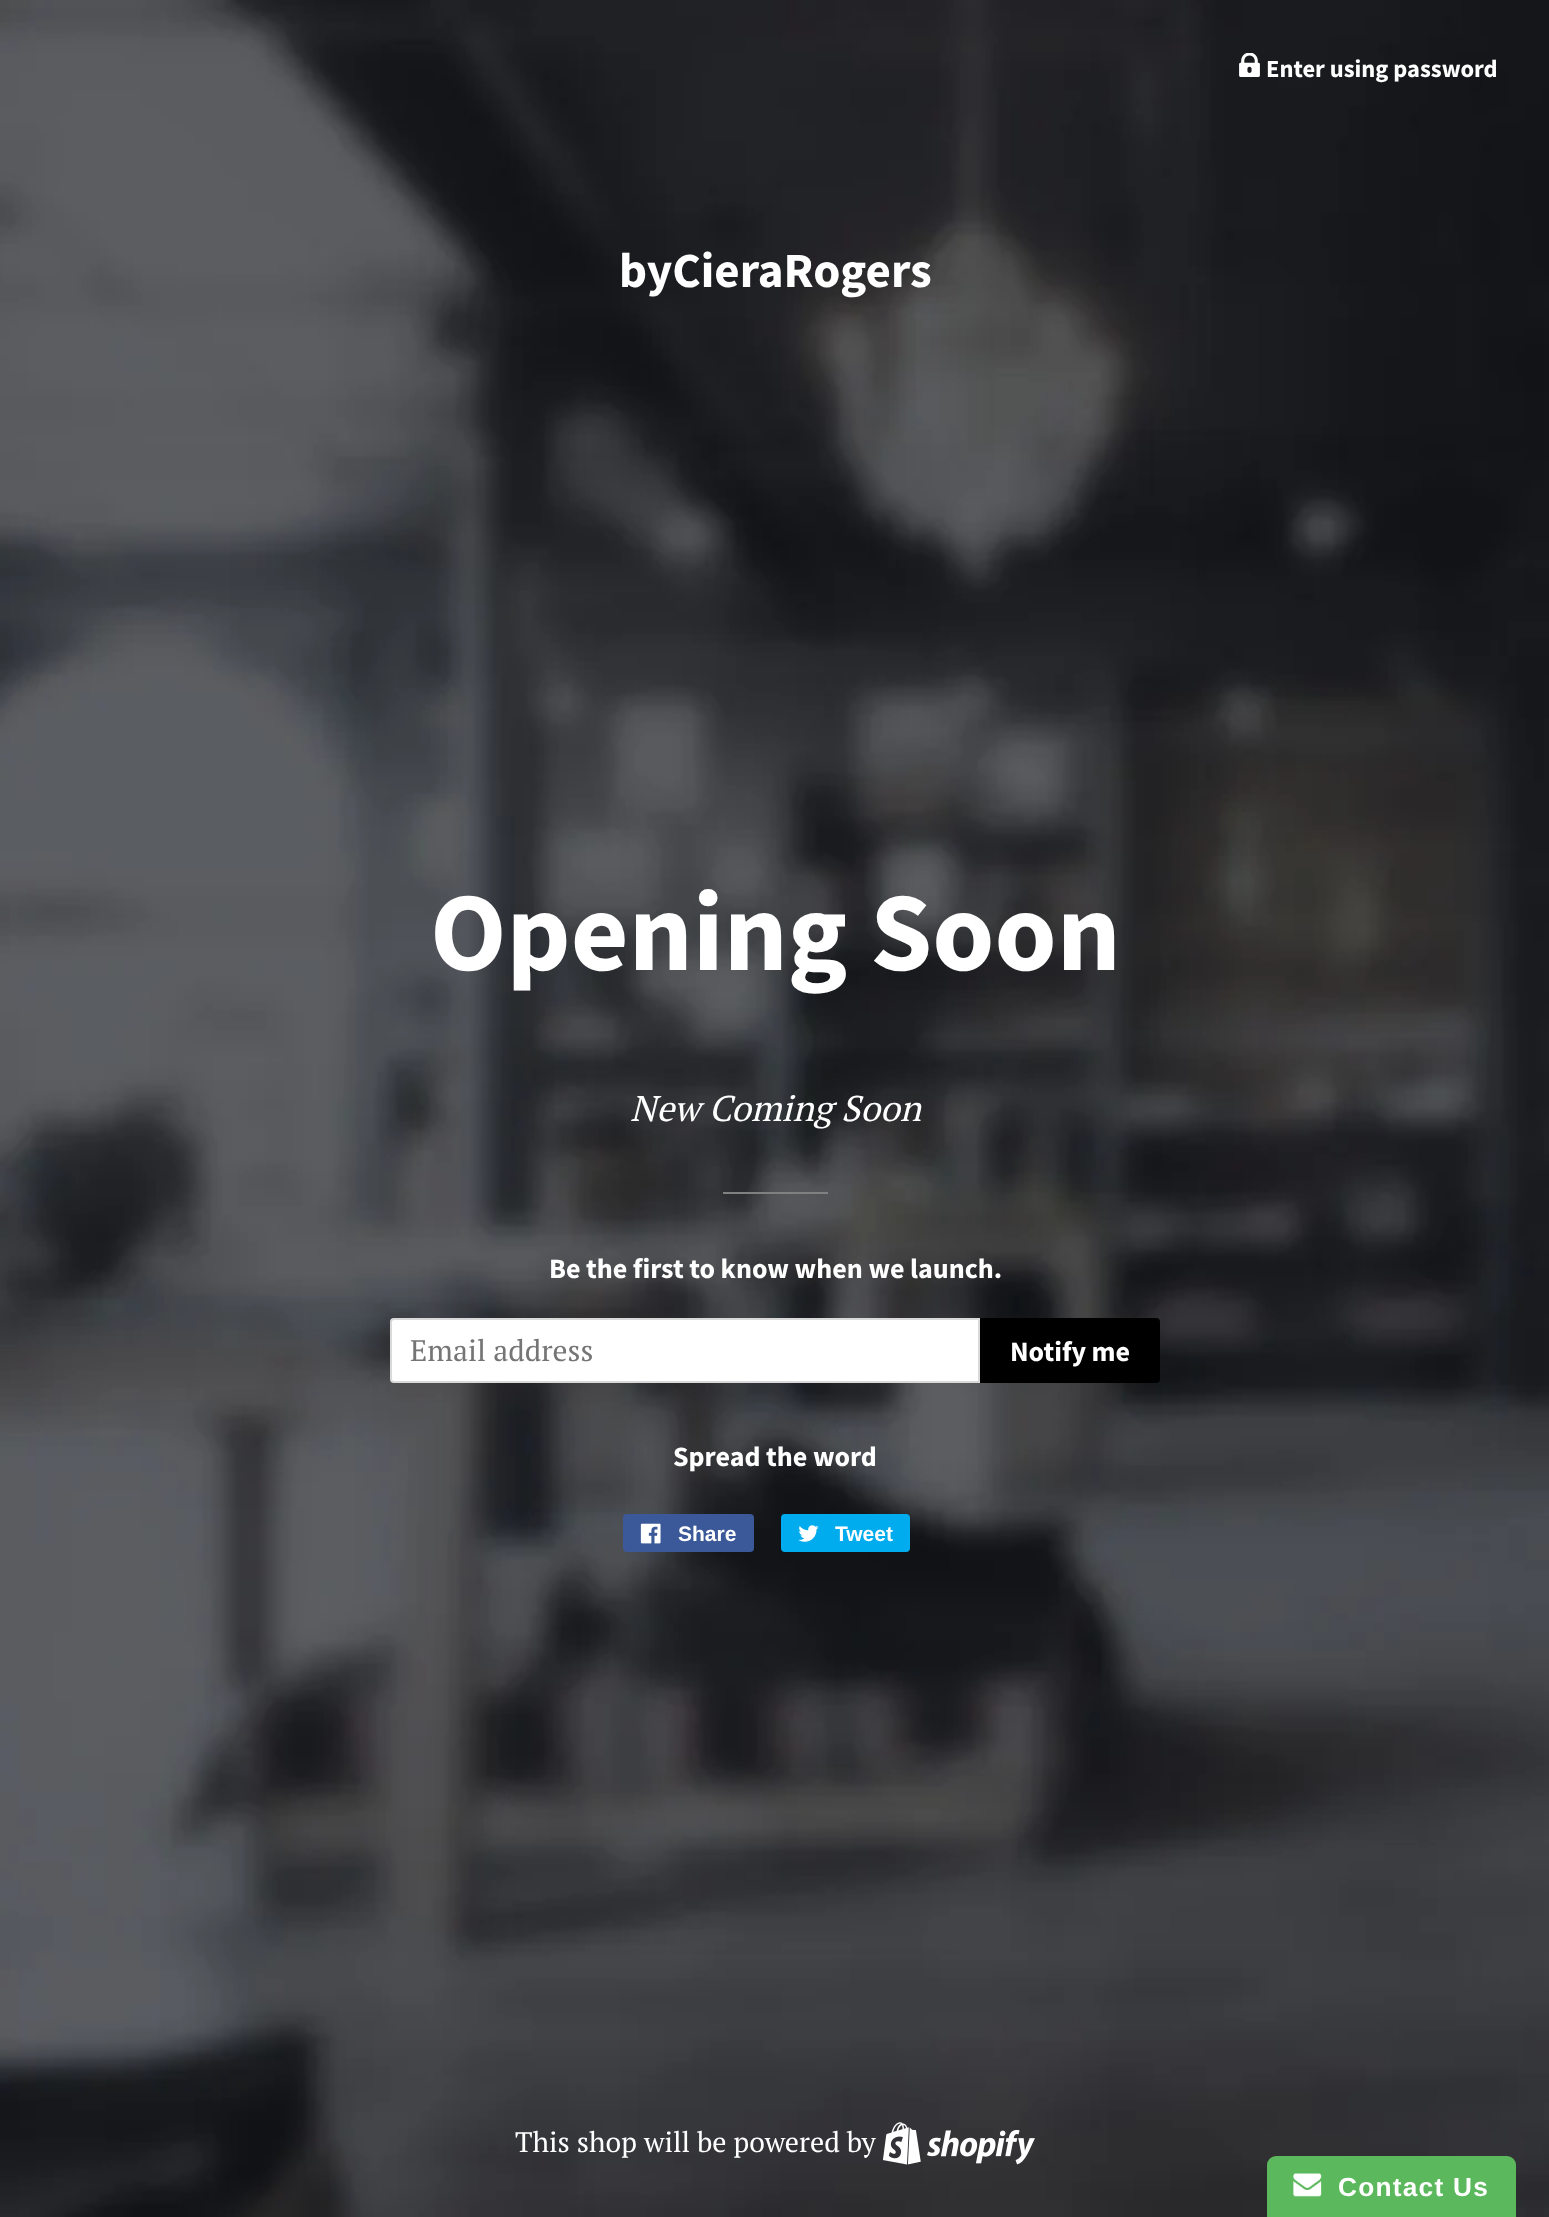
async function draw(canvas) {
  canvas.width = 1549;
  canvas.height = 2217;
  const ctx = canvas.getContext('2d');
  ctx.miterLimit = 4;
  ctx.fontKerning = 'normal';
  function label(s, x, y, font, color) {
    ctx.font = font;
    ctx.fillStyle = color;
    ctx.fillText(s, x, y);
  }
  function rect(x, y, w, h, color) {
    ctx.fillStyle = color;
    ctx.fillRect(x, y, w, h);
  }
  function roundedRect(x, y, w, h, r, color) {
    ctx.fillStyle = color;
    ctx.beginPath();
    ctx.roundRect(x, y, w, h, r);
    ctx.fill();
  }
  async function image(src, x, y, w, h) {
    const img = new Image();
    img.src = src;
    await img.decode();
    ctx.drawImage(img, x, y, w, h);
  }

  rect(0, 0, 1549, 2217, '#fff');
  await image('assets/img1.png', 0, 0, 1549, 2217);
  await image('assets/img2.png', 1239, 53, 21, 24);
  label('Enter using password', 1266, 77, 'bold 24.5px Source Sans Pro', '#fff');
  label('byCieraRogers', 619, 287, 'bold 49px Source Sans Pro', '#fff');
  label('Opening Soon', 430, 970, 'bold 112px Source Sans Pro', '#fff');
  label('New Coming Soon', 630, 1121, 'italic 35.75px PT Serif', '#fff');
  rect(723, 1192, 105, 2, '#808080');
  label('Be the first to know when we launch.', 549, 1278, 'bold 28px Source Sans Pro', '#fff');
  ctx.beginPath();
  ctx.roundRect(390, 1318, 590, 65, [4, 0, 0, 4]);
  ctx.fill();
  ctx.beginPath();
  ctx.roundRect(391, 1319, 588, 63, [3, 0, 0, 3]);
  ctx.strokeStyle = '#00000026';
  ctx.lineWidth = 2;
  ctx.stroke();
  label('Email address', 410, 1361, '29.75px PT Serif', '#757575');
  ctx.fillStyle = '#000';
  ctx.beginPath();
  ctx.roundRect(980, 1318, 180, 65, [0, 4, 4, 0]);
  ctx.fill();
  label('Notify me', 1010, 1361, 'bold 28px Source Sans Pro', '#fff');
  label('Spread the word', 673, 1466, 'bold 28px Source Sans Pro', '#fff');
  roundedRect(623, 1514, 131, 38, 4, '#3b5998');
  await image('assets/img3.png', 640, 1523, 21, 21);
  label('Share', 678, 1541, 'bold 21px Liberation Sans', '#fff');
  roundedRect(781, 1514, 129, 38, 4, '#00aced');
  await image('assets/img4.png', 798, 1525, 21, 17);
  label('Tweet', 835, 1541, 'bold 21px Liberation Sans', '#fff');
  label('This shop will be powered by', 515, 2152, '28.25px PT Serif', '#fff');
  await image('assets/img5.png', 883, 2122, 152, 43);
  ctx.fillStyle = '#5cb85c';
  ctx.beginPath();
  ctx.roundRect(1267, 2156, 249, 61, [9, 9, 0, 0]);
  ctx.fill();
  await image('assets/img6.png', 1293, 2173, 29, 24);
  ctx.letterSpacing = '1.25px';
  label('Contact Us', 1338, 2196, 'bold 26.25px Liberation Sans', '#fff');
}

draw(document.querySelector('canvas'));
